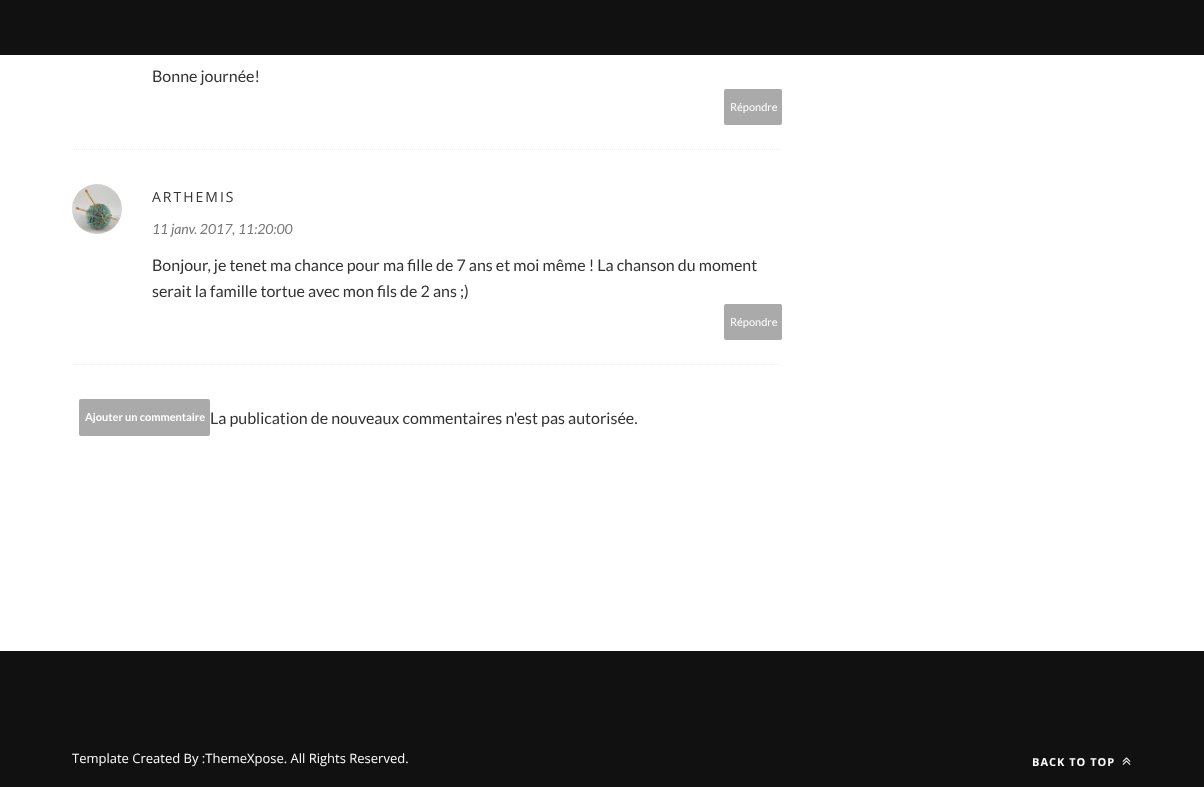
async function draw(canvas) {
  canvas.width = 1204;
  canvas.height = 787;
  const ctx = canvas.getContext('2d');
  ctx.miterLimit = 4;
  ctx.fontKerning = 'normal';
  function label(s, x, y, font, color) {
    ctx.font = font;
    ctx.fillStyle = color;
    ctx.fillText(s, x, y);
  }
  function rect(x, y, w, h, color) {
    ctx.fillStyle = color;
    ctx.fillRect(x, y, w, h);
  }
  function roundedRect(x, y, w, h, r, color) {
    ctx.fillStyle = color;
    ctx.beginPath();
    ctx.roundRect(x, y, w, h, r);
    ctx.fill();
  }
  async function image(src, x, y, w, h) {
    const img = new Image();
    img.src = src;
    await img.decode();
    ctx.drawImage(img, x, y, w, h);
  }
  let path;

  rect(0, 0, 1204, 787, '#fff');
  rect(0, 0, 1204, 55, '#111');
  path = new Path2D('M72 149.5H782');
  ctx.strokeStyle = '#eee';
  ctx.setLineDash([1, 1]);
  ctx.stroke(path);
  label('Bonne journée!', 152, 82, '16px Lato', '#333');
  roundedRect(724, 89, 58, 36, 2, '#aaa');
  label('Répondre', 730, 111, '11px Lato', '#fff');
  path = new Path2D('M72 364.5H782');
  ctx.stroke(path);
  await image('assets/img1.png', 72, 184, 50, 50);
  ctx.letterSpacing = '2px';
  label('ARTHEMIS', 152, 202, '14px Open Sans', '#333');
  ctx.letterSpacing = '0px';
  label('11 janv. 2017, 11:20:00', 152, 234, 'italic 14px Lato', '#777');
  label('Bonjour, je tenet ma chance pour ma fille de 7 ans et moi même ! La chanson du moment', 152, 271, '16px Lato', '#333');
  label('serait la famille tortue avec mon fils de 2 ans ;)', 152, 297, '16px Lato', '#333');
  roundedRect(724, 304, 58, 36, 2, '#aaa');
  label('Répondre', 730, 326, '11px Lato', '#fff');
  roundedRect(79, 399, 131, 37, 2, '#aaa');
  label('Ajouter un commentaire', 85, 421, 'bold 11px Lato', '#fff');
  label('La publication de nouveaux commentaires n\'est pas autorisée.', 210, 424, '16px Lato', '#333');
  rect(0, 651, 1204, 136, '#111');
  label('Template Created By :ThemeXpose. All Rights Reserved.', 72, 763, '13px Open Sans', '#fff');
  ctx.letterSpacing = '1px';
  label('BACK TO TOP', 1032, 766, 'bold 11px Open Sans', '#fff');
  await image('assets/img2.png', 1122, 757, 9, 8);
}

draw(document.querySelector('canvas'));
